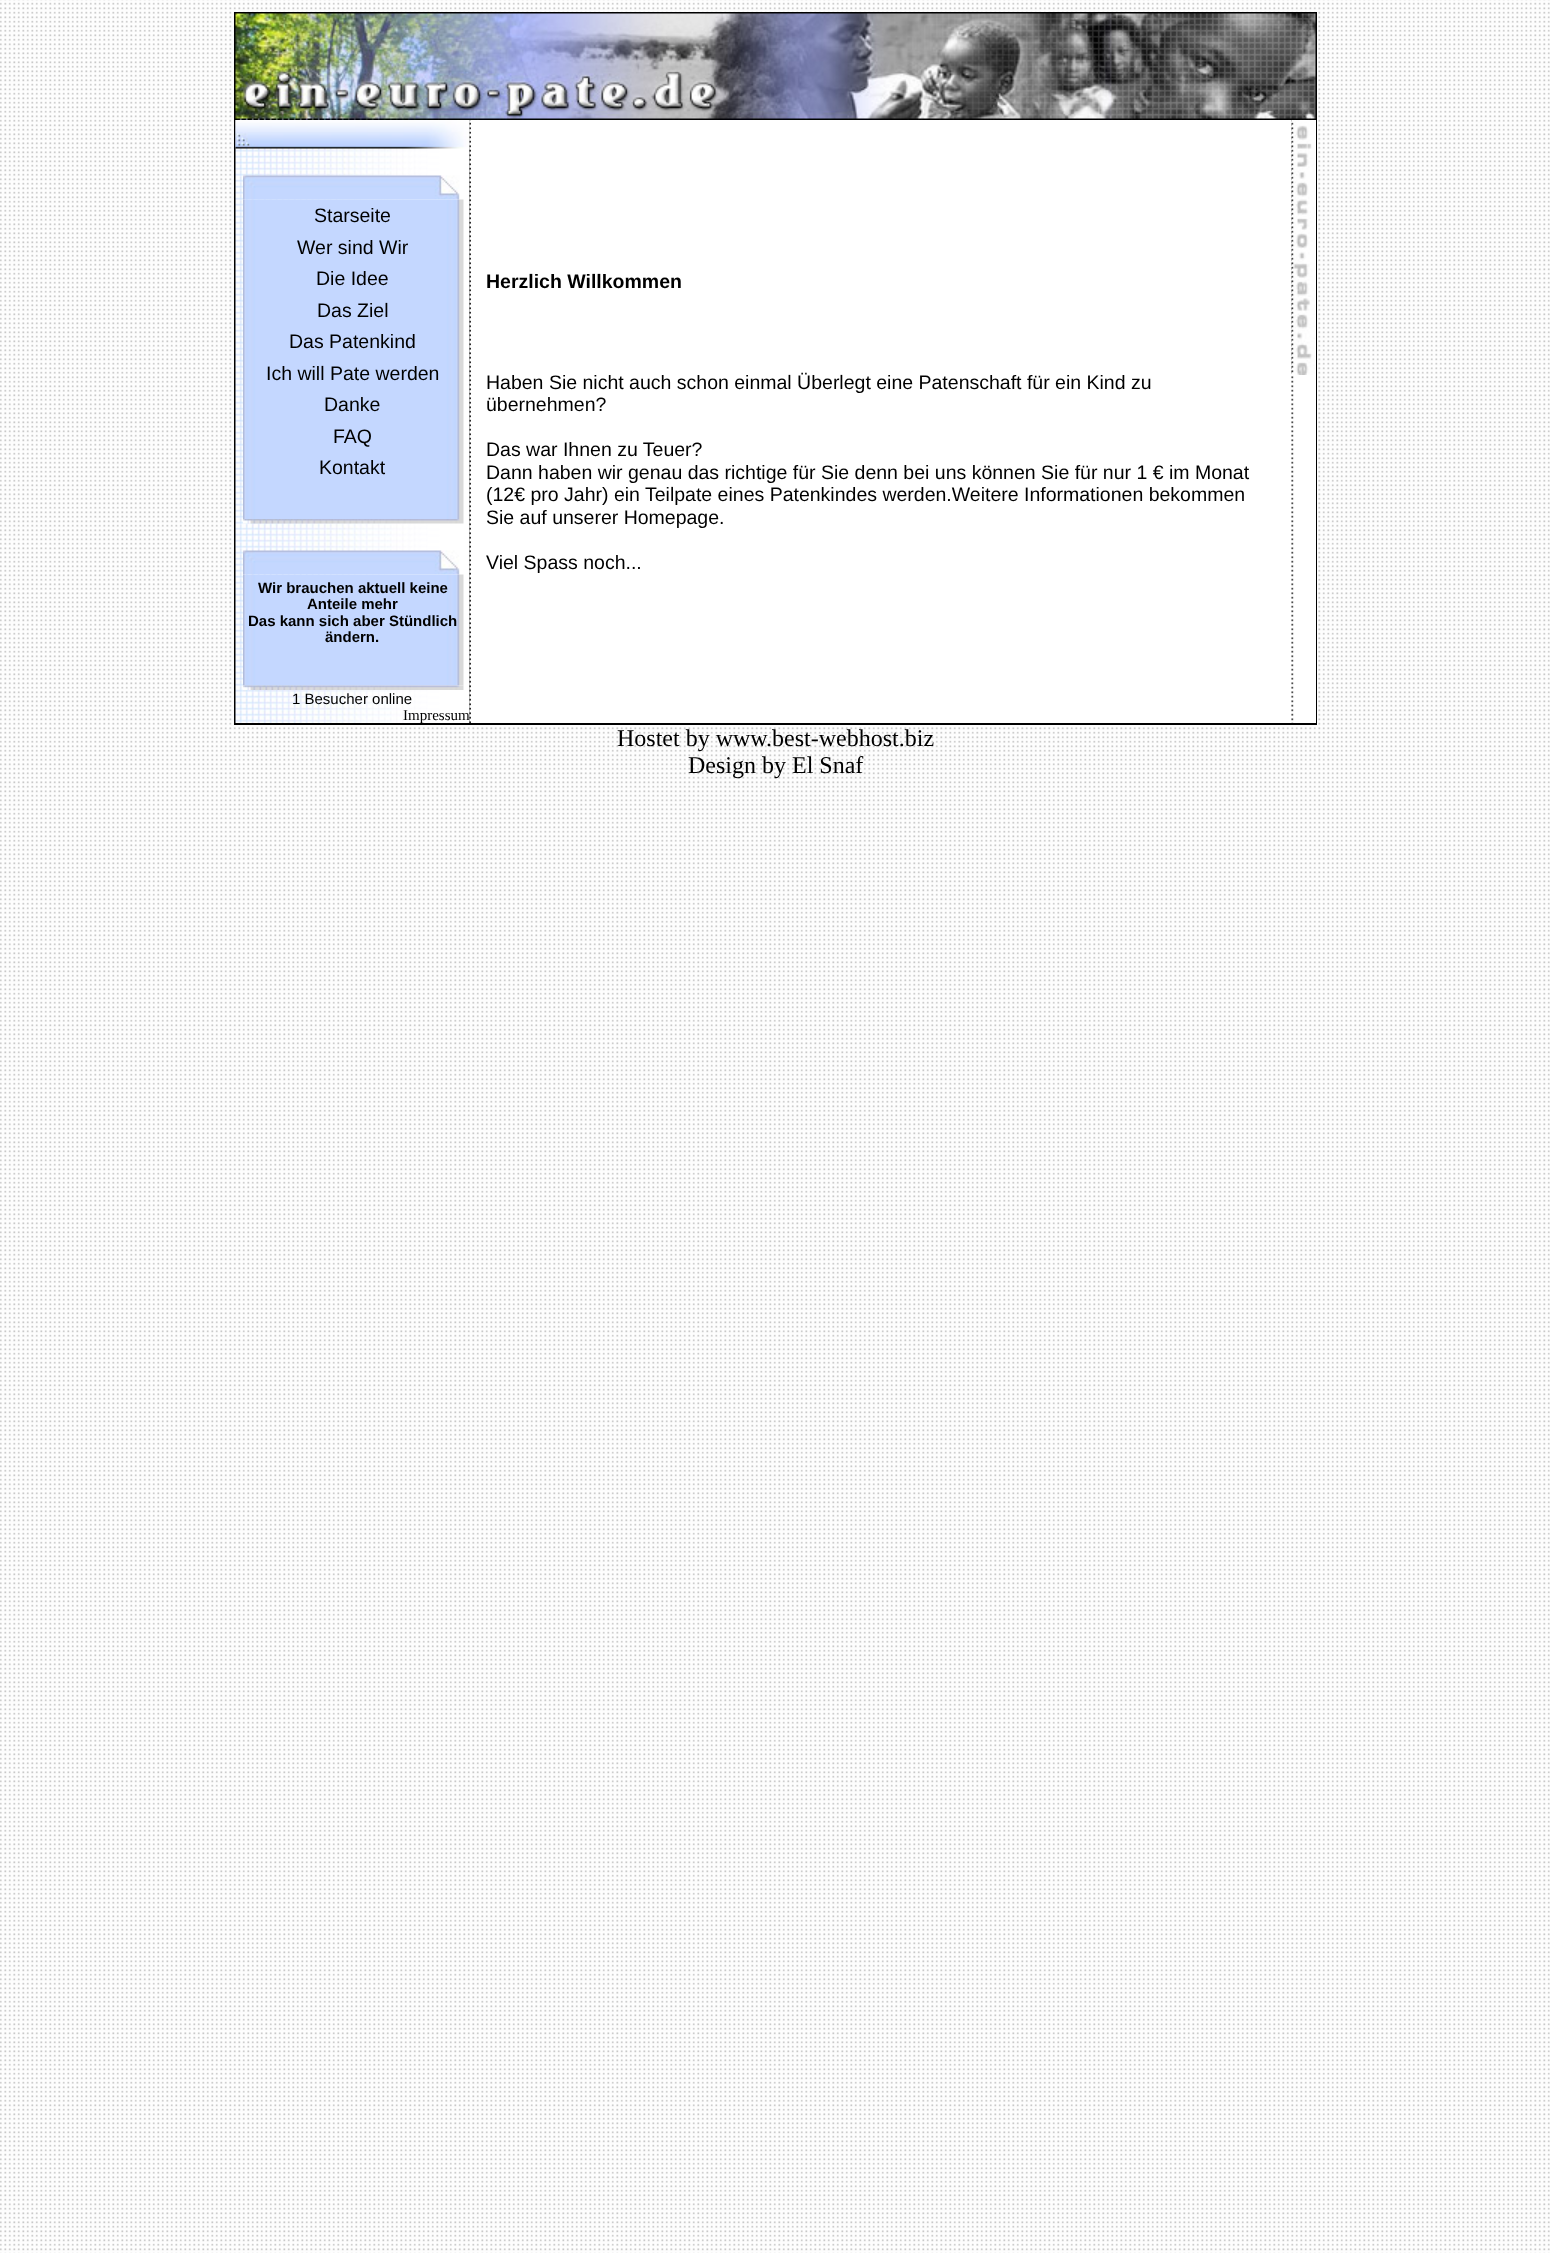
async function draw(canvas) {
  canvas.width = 1550;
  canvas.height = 2253;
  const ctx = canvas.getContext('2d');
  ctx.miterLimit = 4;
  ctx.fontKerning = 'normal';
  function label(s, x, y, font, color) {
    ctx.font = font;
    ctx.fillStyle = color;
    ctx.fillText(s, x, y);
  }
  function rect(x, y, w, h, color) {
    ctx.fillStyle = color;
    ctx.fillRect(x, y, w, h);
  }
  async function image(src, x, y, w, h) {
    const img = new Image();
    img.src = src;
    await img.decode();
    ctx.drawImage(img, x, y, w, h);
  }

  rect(0, 0, 1550, 2253, '#fff');
  await image('assets/img1.png', 0, 0, 1550, 2253);
  rect(234, 12, 1083, 713, '#000');
  await image('assets/img2.png', 235, 13, 1081, 107);
  await image('assets/img6.png', 235, 120, 235, 603);
  await image('assets/img7.png', 235, 120, 235, 29);
  await image('assets/img3.png', 469, 120, 2, 603);
  rect(1294, 120, 22, 603, '#fff');
  rect(471, 120, 821, 603, '#fff');
  await image('assets/img4.png', 1291, 120, 3, 603);
  await image('assets/img5.png', 1291, 120, 24, 255);
  await image('assets/img8.png', 243, 175, 217, 25);
  await image('assets/img9.png', 243, 199, 221, 320);
  label('Starseite', 314, 222, '19.5px Liberation Sans', '#000');
  label('Wer sind Wir', 297, 254, '19.5px Liberation Sans', '#000');
  label('Die Idee', 316, 285, '19.5px Liberation Sans', '#000');
  label('Das Ziel', 317, 317, '19.5px Liberation Sans', '#000');
  label('Das Patenkind', 289, 348, '19.5px Liberation Sans', '#000');
  label('Ich will Pate werden', 266, 380, '19.5px Liberation Sans', '#000');
  label('Danke', 324, 411, '19.5px Liberation Sans', '#000');
  label('FAQ', 333, 443, '19.5px Liberation Sans', '#000');
  label('Kontakt', 319, 474, '19.5px Liberation Sans', '#000');
  await image('assets/img10.png', 243, 519, 221, 5);
  await image('assets/img11.png', 243, 550, 217, 25);
  await image('assets/img12.png', 243, 574, 221, 112);
  label('Wir brauchen aktuell keine', 258, 593, 'bold 15px Liberation Sans', '#000');
  label('Anteile mehr', 307, 609, 'bold 15px Liberation Sans', '#000');
  label('Das kann sich aber Stündlich', 248, 626, 'bold 15px Liberation Sans', '#000');
  label('ändern.', 325, 642, 'bold 15px Liberation Sans', '#000');
  await image('assets/img13.png', 243, 685, 221, 5);
  label('1 Besucher online', 292, 704, '15px Liberation Sans', '#000');
  label('Impressum', 403, 720, '15px Liberation Serif', '#000');
  label('Herzlich Willkommen', 486, 288, 'bold 19.5px Liberation Sans', '#000');
  label('Haben Sie nicht auch schon einmal Überlegt eine Patenschaft für ein Kind zu', 486, 389, '19.5px Liberation Sans', '#000');
  label('übernehmen?', 486, 411, '19.5px Liberation Sans', '#000');
  label('Das war Ihnen zu Teuer?', 486, 456, '19.5px Liberation Sans', '#000');
  label('Dann haben wir genau das richtige für Sie denn bei uns können Sie für nur 1 € im Monat', 486, 479, '19.5px Liberation Sans', '#000');
  label('(12€ pro Jahr) ein Teilpate eines Patenkindes werden.Weitere Informationen bekommen', 486, 501, '19.5px Liberation Sans', '#000');
  label('Sie auf unserer Homepage.', 486, 524, '19.5px Liberation Sans', '#000');
  label('Viel Spass noch...', 486, 569, '19.5px Liberation Sans', '#000');
  label('Hostet by www.best-webhost.biz', 617, 746, '24px Liberation Serif', '#000');
  label('Design by El Snaf', 688, 773, '24px Liberation Serif', '#000');
}

draw(document.querySelector('canvas'));
